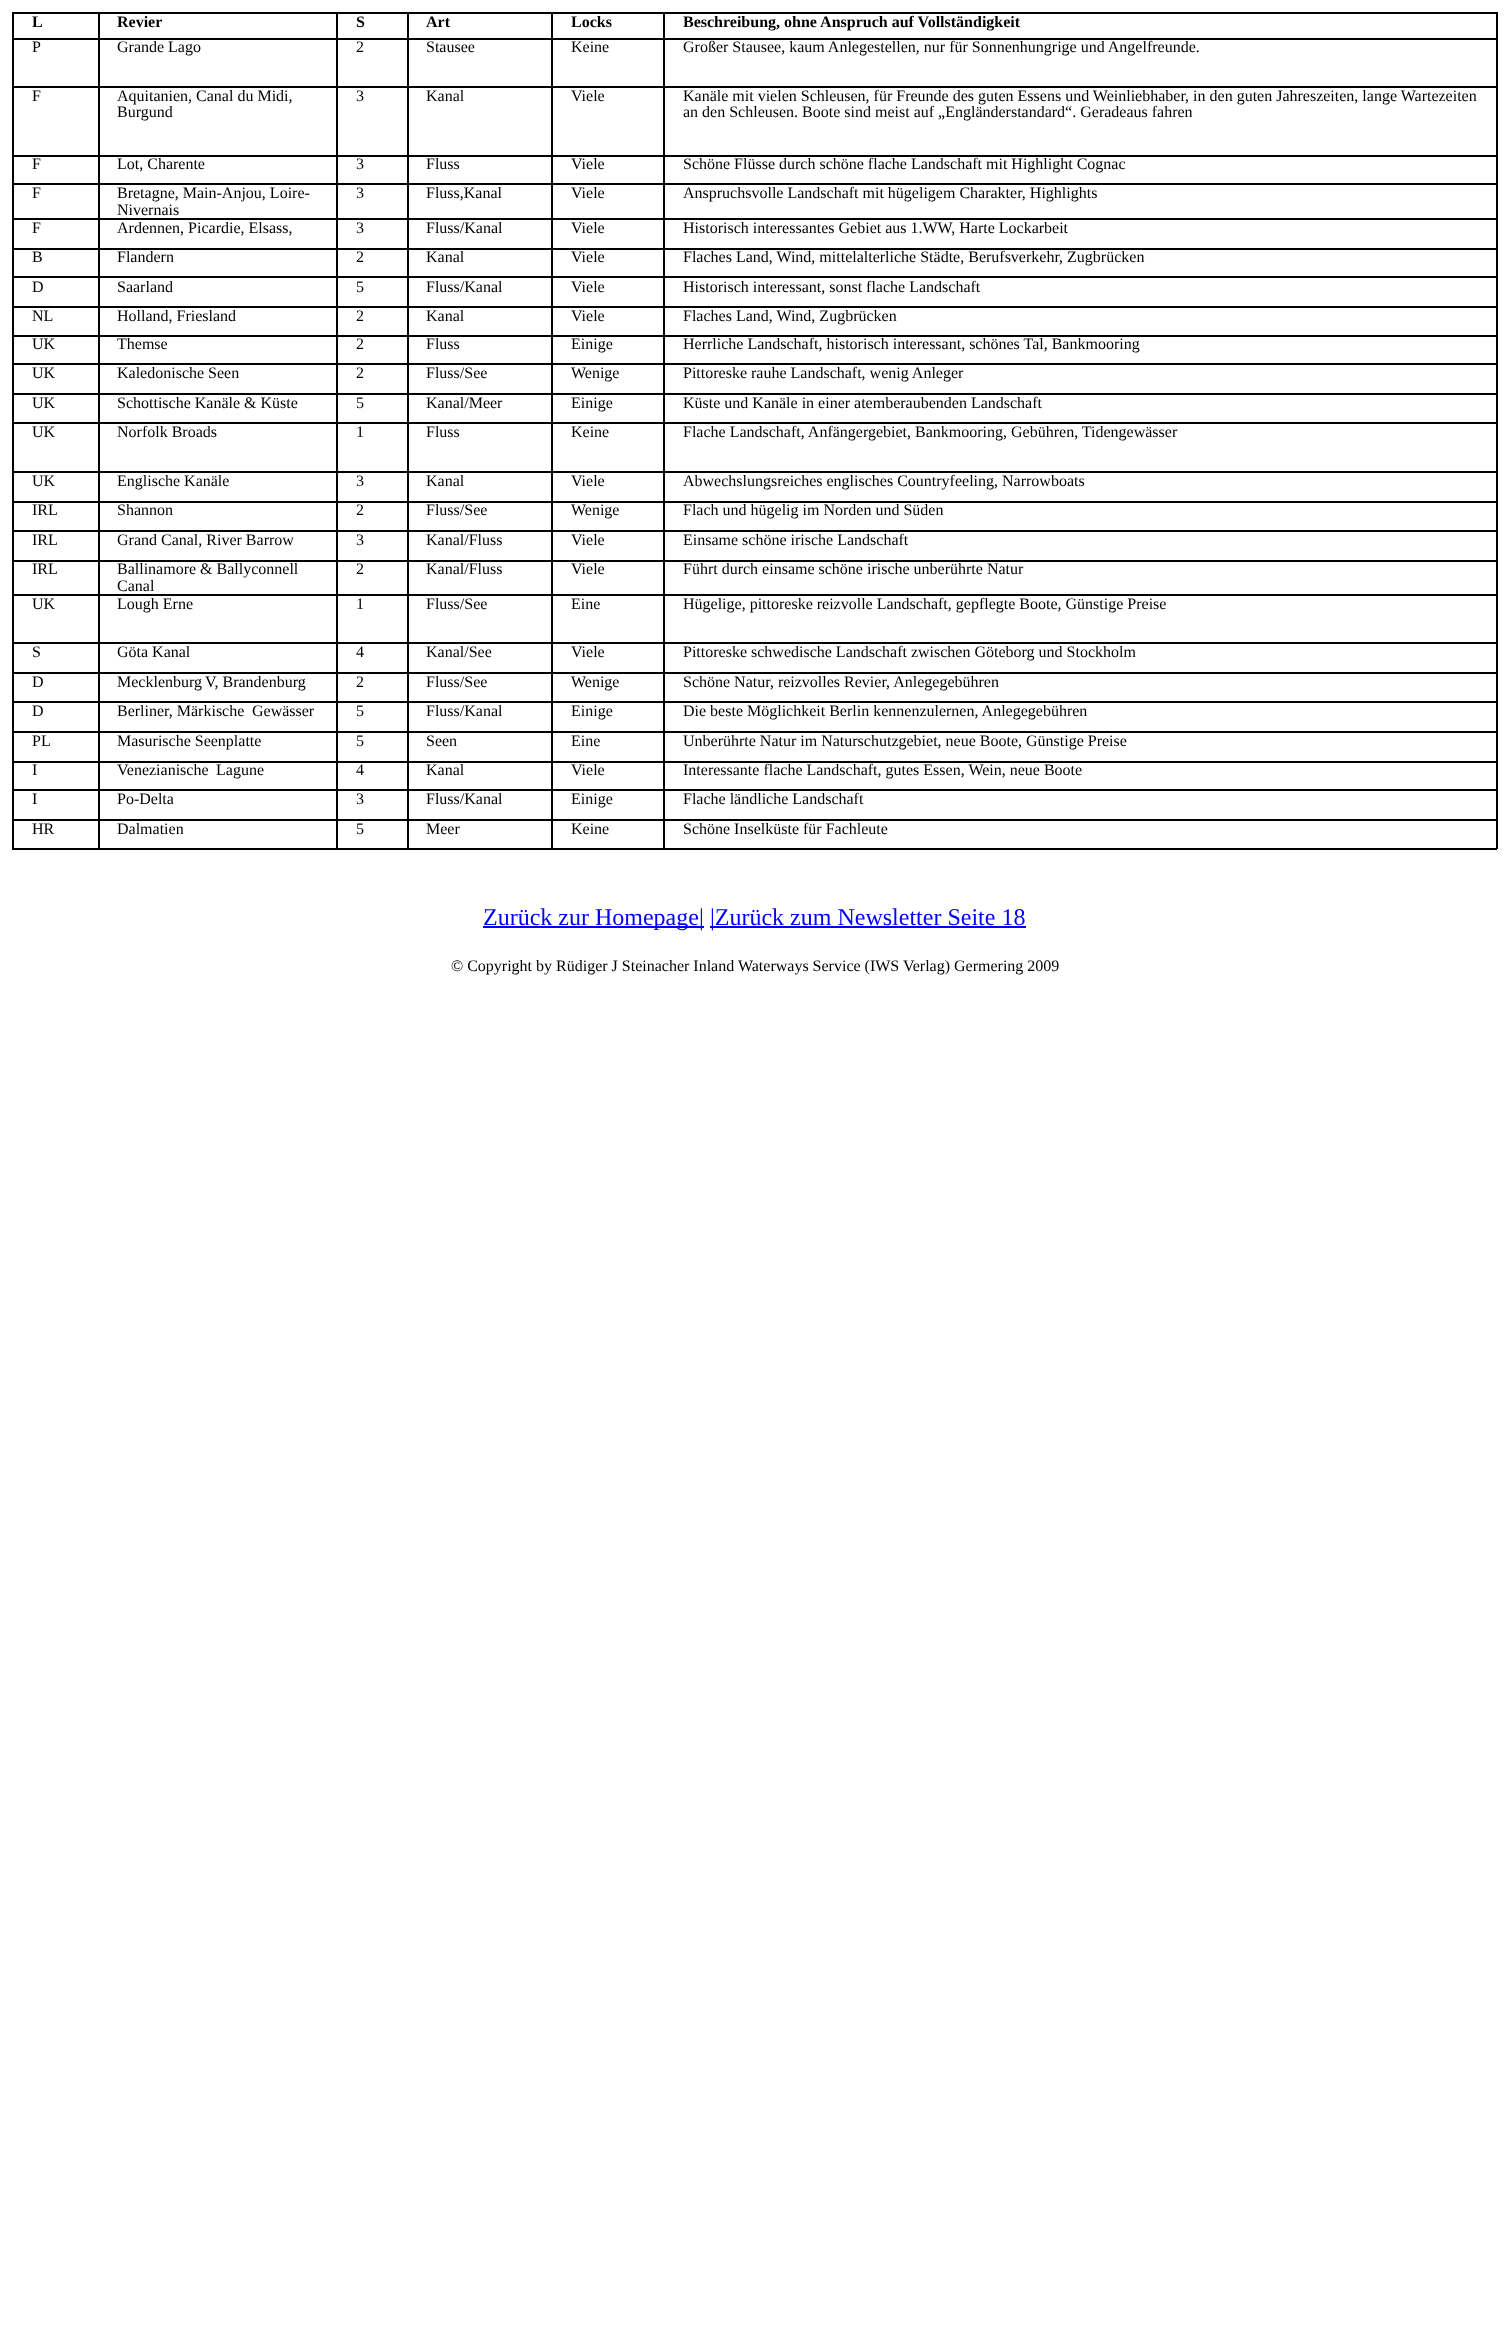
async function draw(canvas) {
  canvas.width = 1508;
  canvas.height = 2343;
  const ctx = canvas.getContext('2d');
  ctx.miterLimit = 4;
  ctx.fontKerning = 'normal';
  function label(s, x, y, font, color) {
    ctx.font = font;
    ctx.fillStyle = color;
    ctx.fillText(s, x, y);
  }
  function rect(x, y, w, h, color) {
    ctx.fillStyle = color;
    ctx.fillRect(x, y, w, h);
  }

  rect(0, 0, 1508, 2343, '#fff');
  rect(663, 12, 834, 2, '#000');
  rect(1496, 306, 2, 543, '#000');
  rect(1496, 38, 2, 270, '#000');
  rect(1496, 12, 2, 27, '#000');
  rect(663, 848, 834, 2, '#000');
  rect(663, 819, 2, 30, '#000');
  rect(663, 819, 834, 2, '#000');
  rect(663, 789, 2, 32, '#000');
  rect(663, 789, 834, 2, '#000');
  rect(663, 761, 2, 30, '#000');
  rect(663, 761, 834, 2, '#000');
  rect(663, 731, 2, 31, '#000');
  rect(663, 731, 834, 2, '#000');
  rect(663, 701, 2, 31, '#000');
  rect(663, 701, 834, 2, '#000');
  rect(663, 672, 2, 30, '#000');
  rect(663, 672, 834, 2, '#000');
  rect(663, 642, 2, 32, '#000');
  rect(663, 642, 834, 2, '#000');
  rect(663, 594, 2, 50, '#000');
  rect(663, 594, 834, 2, '#000');
  rect(663, 560, 2, 36, '#000');
  rect(663, 560, 834, 2, '#000');
  rect(663, 530, 2, 31, '#000');
  rect(663, 530, 834, 2, '#000');
  rect(663, 501, 2, 30, '#000');
  rect(663, 501, 834, 2, '#000');
  rect(663, 471, 2, 32, '#000');
  rect(663, 471, 834, 2, '#000');
  rect(663, 422, 2, 51, '#000');
  rect(663, 422, 834, 2, '#000');
  rect(663, 393, 2, 30, '#000');
  rect(663, 393, 834, 2, '#000');
  rect(663, 363, 2, 32, '#000');
  rect(663, 363, 834, 2, '#000');
  rect(663, 335, 2, 30, '#000');
  rect(663, 335, 834, 2, '#000');
  rect(663, 306, 2, 30, '#000');
  rect(663, 306, 834, 2, '#000');
  rect(663, 276, 2, 32, '#000');
  rect(663, 276, 834, 2, '#000');
  rect(663, 248, 2, 30, '#000');
  rect(663, 248, 834, 2, '#000');
  rect(663, 218, 2, 31, '#000');
  rect(663, 218, 834, 2, '#000');
  rect(663, 183, 2, 36, '#000');
  rect(663, 183, 834, 2, '#000');
  rect(663, 155, 2, 30, '#000');
  rect(663, 155, 834, 2, '#000');
  rect(663, 86, 2, 70, '#000');
  rect(663, 86, 834, 2, '#000');
  rect(663, 38, 2, 49, '#000');
  rect(663, 38, 834, 2, '#000');
  rect(663, 12, 2, 27, '#000');
  rect(551, 12, 114, 2, '#000');
  rect(551, 848, 114, 2, '#000');
  rect(551, 819, 2, 30, '#000');
  rect(551, 819, 114, 2, '#000');
  rect(551, 789, 2, 32, '#000');
  rect(551, 789, 114, 2, '#000');
  rect(551, 761, 2, 30, '#000');
  rect(551, 761, 114, 2, '#000');
  rect(551, 731, 2, 31, '#000');
  rect(551, 731, 114, 2, '#000');
  rect(551, 701, 2, 31, '#000');
  rect(551, 701, 114, 2, '#000');
  rect(551, 672, 2, 30, '#000');
  rect(551, 672, 114, 2, '#000');
  rect(551, 642, 2, 32, '#000');
  rect(551, 642, 114, 2, '#000');
  rect(551, 594, 2, 50, '#000');
  rect(551, 594, 114, 2, '#000');
  rect(551, 560, 2, 36, '#000');
  rect(551, 560, 114, 2, '#000');
  rect(551, 530, 2, 31, '#000');
  rect(551, 530, 114, 2, '#000');
  rect(551, 501, 2, 30, '#000');
  rect(551, 501, 114, 2, '#000');
  rect(551, 471, 2, 32, '#000');
  rect(551, 471, 114, 2, '#000');
  rect(551, 422, 2, 51, '#000');
  rect(551, 422, 114, 2, '#000');
  rect(551, 393, 2, 30, '#000');
  rect(551, 393, 114, 2, '#000');
  rect(551, 363, 2, 32, '#000');
  rect(551, 363, 114, 2, '#000');
  rect(551, 335, 2, 30, '#000');
  rect(551, 335, 114, 2, '#000');
  rect(551, 306, 2, 30, '#000');
  rect(551, 306, 114, 2, '#000');
  rect(551, 276, 2, 32, '#000');
  rect(551, 276, 114, 2, '#000');
  rect(551, 248, 2, 30, '#000');
  rect(551, 248, 114, 2, '#000');
  rect(551, 218, 2, 31, '#000');
  rect(551, 218, 114, 2, '#000');
  rect(551, 183, 2, 36, '#000');
  rect(551, 183, 114, 2, '#000');
  rect(551, 155, 2, 30, '#000');
  rect(551, 155, 114, 2, '#000');
  rect(551, 86, 2, 70, '#000');
  rect(551, 86, 114, 2, '#000');
  rect(551, 38, 2, 49, '#000');
  rect(551, 38, 114, 2, '#000');
  rect(551, 12, 2, 27, '#000');
  rect(336, 12, 216, 2, '#000');
  rect(407, 848, 145, 2, '#000');
  rect(407, 819, 2, 30, '#000');
  rect(407, 819, 145, 2, '#000');
  rect(407, 789, 2, 32, '#000');
  rect(407, 789, 145, 2, '#000');
  rect(407, 761, 2, 30, '#000');
  rect(407, 761, 145, 2, '#000');
  rect(407, 731, 2, 31, '#000');
  rect(407, 731, 145, 2, '#000');
  rect(407, 701, 2, 31, '#000');
  rect(407, 701, 145, 2, '#000');
  rect(407, 672, 2, 30, '#000');
  rect(407, 672, 145, 2, '#000');
  rect(407, 642, 2, 32, '#000');
  rect(407, 642, 145, 2, '#000');
  rect(407, 594, 2, 50, '#000');
  rect(407, 594, 145, 2, '#000');
  rect(407, 560, 2, 36, '#000');
  rect(407, 560, 145, 2, '#000');
  rect(407, 530, 2, 31, '#000');
  rect(407, 530, 145, 2, '#000');
  rect(407, 501, 2, 30, '#000');
  rect(407, 501, 145, 2, '#000');
  rect(407, 471, 2, 32, '#000');
  rect(407, 471, 145, 2, '#000');
  rect(407, 422, 2, 51, '#000');
  rect(407, 422, 145, 2, '#000');
  rect(407, 393, 2, 30, '#000');
  rect(407, 393, 145, 2, '#000');
  rect(407, 363, 2, 32, '#000');
  rect(407, 363, 145, 2, '#000');
  rect(407, 335, 2, 30, '#000');
  rect(407, 335, 145, 2, '#000');
  rect(407, 306, 2, 30, '#000');
  rect(407, 306, 145, 2, '#000');
  rect(407, 276, 2, 32, '#000');
  rect(407, 276, 145, 2, '#000');
  rect(407, 248, 2, 30, '#000');
  rect(407, 248, 145, 2, '#000');
  rect(407, 218, 2, 31, '#000');
  rect(407, 218, 145, 2, '#000');
  rect(407, 183, 2, 36, '#000');
  rect(407, 183, 145, 2, '#000');
  rect(407, 155, 2, 30, '#000');
  rect(407, 155, 145, 2, '#000');
  rect(407, 86, 2, 70, '#000');
  rect(407, 86, 145, 2, '#000');
  rect(407, 38, 2, 49, '#000');
  rect(407, 38, 145, 2, '#000');
  rect(407, 12, 2, 27, '#000');
  rect(336, 848, 72, 2, '#000');
  rect(336, 819, 2, 30, '#000');
  rect(336, 819, 72, 2, '#000');
  rect(336, 789, 2, 32, '#000');
  rect(336, 789, 72, 2, '#000');
  rect(336, 761, 2, 30, '#000');
  rect(336, 761, 72, 2, '#000');
  rect(336, 731, 2, 31, '#000');
  rect(336, 731, 72, 2, '#000');
  rect(336, 701, 2, 31, '#000');
  rect(336, 701, 72, 2, '#000');
  rect(336, 672, 2, 30, '#000');
  rect(336, 672, 72, 2, '#000');
  rect(336, 642, 2, 32, '#000');
  rect(336, 642, 72, 2, '#000');
  rect(336, 594, 2, 50, '#000');
  rect(336, 594, 72, 2, '#000');
  rect(336, 560, 2, 36, '#000');
  rect(336, 560, 72, 2, '#000');
  rect(336, 530, 2, 31, '#000');
  rect(336, 530, 72, 2, '#000');
  rect(336, 501, 2, 30, '#000');
  rect(336, 501, 72, 2, '#000');
  rect(336, 471, 2, 32, '#000');
  rect(336, 471, 72, 2, '#000');
  rect(336, 422, 2, 51, '#000');
  rect(336, 422, 72, 2, '#000');
  rect(336, 393, 2, 30, '#000');
  rect(336, 393, 72, 2, '#000');
  rect(336, 363, 2, 32, '#000');
  rect(336, 363, 72, 2, '#000');
  rect(336, 335, 2, 30, '#000');
  rect(336, 335, 72, 2, '#000');
  rect(336, 306, 2, 30, '#000');
  rect(336, 306, 72, 2, '#000');
  rect(336, 276, 2, 32, '#000');
  rect(336, 276, 72, 2, '#000');
  rect(336, 248, 2, 30, '#000');
  rect(336, 248, 72, 2, '#000');
  rect(336, 218, 2, 31, '#000');
  rect(336, 218, 72, 2, '#000');
  rect(336, 183, 2, 36, '#000');
  rect(336, 183, 72, 2, '#000');
  rect(336, 155, 2, 30, '#000');
  rect(336, 155, 72, 2, '#000');
  rect(336, 86, 2, 70, '#000');
  rect(336, 86, 72, 2, '#000');
  rect(336, 38, 2, 49, '#000');
  rect(336, 38, 72, 2, '#000');
  rect(336, 12, 2, 27, '#000');
  rect(98, 12, 240, 2, '#000');
  rect(98, 848, 240, 2, '#000');
  rect(98, 819, 2, 30, '#000');
  rect(98, 819, 240, 2, '#000');
  rect(98, 789, 2, 32, '#000');
  rect(98, 789, 240, 2, '#000');
  rect(98, 761, 2, 30, '#000');
  rect(98, 761, 240, 2, '#000');
  rect(98, 731, 2, 31, '#000');
  rect(98, 731, 240, 2, '#000');
  rect(98, 701, 2, 31, '#000');
  rect(98, 701, 240, 2, '#000');
  rect(98, 672, 2, 30, '#000');
  rect(98, 672, 240, 2, '#000');
  rect(98, 642, 2, 32, '#000');
  rect(98, 642, 240, 2, '#000');
  rect(98, 594, 2, 50, '#000');
  rect(98, 594, 240, 2, '#000');
  rect(98, 560, 2, 36, '#000');
  rect(98, 560, 240, 2, '#000');
  rect(98, 530, 2, 31, '#000');
  rect(98, 530, 240, 2, '#000');
  rect(98, 501, 2, 30, '#000');
  rect(98, 501, 240, 2, '#000');
  rect(98, 471, 2, 32, '#000');
  rect(98, 471, 240, 2, '#000');
  rect(98, 422, 2, 51, '#000');
  rect(98, 422, 240, 2, '#000');
  rect(98, 393, 2, 30, '#000');
  rect(98, 393, 240, 2, '#000');
  rect(98, 363, 2, 32, '#000');
  rect(98, 363, 240, 2, '#000');
  rect(98, 335, 2, 30, '#000');
  rect(98, 335, 240, 2, '#000');
  rect(98, 306, 2, 30, '#000');
  rect(98, 306, 240, 2, '#000');
  rect(98, 276, 2, 32, '#000');
  rect(98, 276, 240, 2, '#000');
  rect(98, 248, 2, 30, '#000');
  rect(98, 248, 240, 2, '#000');
  rect(98, 218, 2, 31, '#000');
  rect(98, 218, 240, 2, '#000');
  rect(98, 183, 2, 36, '#000');
  rect(98, 183, 240, 2, '#000');
  rect(98, 155, 2, 30, '#000');
  rect(98, 155, 240, 2, '#000');
  rect(98, 86, 2, 70, '#000');
  rect(98, 86, 240, 2, '#000');
  rect(98, 38, 2, 49, '#000');
  rect(98, 38, 240, 2, '#000');
  rect(98, 12, 2, 27, '#000');
  rect(12, 12, 87, 2, '#000');
  rect(12, 848, 87, 2, '#000');
  rect(12, 819, 2, 30, '#000');
  rect(12, 819, 87, 2, '#000');
  rect(12, 789, 2, 32, '#000');
  rect(12, 789, 87, 2, '#000');
  rect(12, 761, 2, 30, '#000');
  rect(12, 761, 87, 2, '#000');
  rect(12, 731, 2, 31, '#000');
  rect(12, 731, 87, 2, '#000');
  rect(12, 701, 2, 31, '#000');
  rect(12, 701, 87, 2, '#000');
  rect(12, 672, 2, 30, '#000');
  rect(12, 672, 87, 2, '#000');
  rect(12, 642, 2, 32, '#000');
  rect(12, 642, 87, 2, '#000');
  rect(12, 594, 2, 50, '#000');
  rect(12, 594, 87, 2, '#000');
  rect(12, 560, 2, 36, '#000');
  rect(12, 560, 87, 2, '#000');
  rect(12, 530, 2, 31, '#000');
  rect(12, 530, 87, 2, '#000');
  rect(12, 501, 2, 30, '#000');
  rect(12, 501, 87, 2, '#000');
  rect(12, 471, 2, 32, '#000');
  rect(12, 471, 87, 2, '#000');
  rect(12, 422, 2, 51, '#000');
  rect(12, 422, 87, 2, '#000');
  rect(12, 393, 2, 30, '#000');
  rect(12, 393, 87, 2, '#000');
  rect(12, 363, 2, 32, '#000');
  rect(12, 363, 87, 2, '#000');
  rect(12, 335, 2, 30, '#000');
  rect(12, 335, 87, 2, '#000');
  rect(12, 306, 2, 30, '#000');
  rect(12, 306, 87, 2, '#000');
  rect(12, 276, 2, 32, '#000');
  rect(12, 276, 87, 2, '#000');
  rect(12, 248, 2, 30, '#000');
  rect(12, 248, 87, 2, '#000');
  rect(12, 218, 2, 31, '#000');
  rect(12, 218, 87, 2, '#000');
  rect(12, 183, 2, 36, '#000');
  rect(12, 183, 87, 2, '#000');
  rect(12, 155, 2, 30, '#000');
  rect(12, 155, 87, 2, '#000');
  rect(12, 86, 2, 70, '#000');
  rect(12, 86, 87, 2, '#000');
  rect(12, 38, 2, 49, '#000');
  rect(12, 38, 87, 2, '#000');
  rect(12, 12, 2, 27, '#000');
  label('L', 32, 27, 'bold 16px Liberation Serif', '#000');
  label('Revier', 117, 27, 'bold 16px Liberation Serif', '#000');
  label('S', 356, 27, 'bold 16px Liberation Serif', '#000');
  label('Art', 426, 27, 'bold 16px Liberation Serif', '#000');
  label('Locks', 571, 27, 'bold 16px Liberation Serif', '#000');
  label('Beschreibung, ohne Anspruch auf Vollständigkeit', 683, 27, 'bold 16px Liberation Serif', '#000');
  label('P', 32, 52, '16px Liberation Serif', '#000');
  label('Grande Lago', 117, 52, '16px Liberation Serif', '#000');
  label('2', 356, 52, '16px Liberation Serif', '#000');
  label('Stausee', 426, 52, '16px Liberation Serif', '#000');
  label('Keine', 571, 52, '16px Liberation Serif', '#000');
  label('Großer Stausee, kaum Anlegestellen, nur für Sonnenhungrige und Angelfreunde.', 683, 52, '16px Liberation Serif', '#000');
  label('F', 32, 101, '16px Liberation Serif', '#000');
  label('Aquitanien, Canal du Midi,', 117, 101, '16px Liberation Serif', '#000');
  label('Burgund', 117, 117, '16px Liberation Serif', '#000');
  label('3', 356, 101, '16px Liberation Serif', '#000');
  label('Kanal', 426, 101, '16px Liberation Serif', '#000');
  label('Viele', 571, 101, '16px Liberation Serif', '#000');
  label('Kanäle mit vielen Schleusen, für Freunde des guten Essens und Weinliebhaber, in den guten Jahreszeiten, lange Wartezeiten', 683, 101, '16px Liberation Serif', '#000');
  label('an den Schleusen. Boote sind meist auf „Engländerstandard“. Geradeaus fahren', 683, 117, '16px Liberation Serif', '#000');
  label('F', 32, 169, '16px Liberation Serif', '#000');
  label('Lot, Charente', 117, 169, '16px Liberation Serif', '#000');
  label('3', 356, 169, '16px Liberation Serif', '#000');
  label('Fluss', 426, 169, '16px Liberation Serif', '#000');
  label('Viele', 571, 169, '16px Liberation Serif', '#000');
  label('Schöne Flüsse durch schöne flache Landschaft mit Highlight Cognac', 683, 169, '16px Liberation Serif', '#000');
  label('F', 32, 198, '16px Liberation Serif', '#000');
  label('Bretagne, Main-Anjou, Loire-', 117, 198, '16px Liberation Serif', '#000');
  label('Nivernais', 117, 215, '16px Liberation Serif', '#000');
  label('3', 356, 198, '16px Liberation Serif', '#000');
  label('Fluss,Kanal', 426, 198, '16px Liberation Serif', '#000');
  label('Viele', 571, 198, '16px Liberation Serif', '#000');
  label('Anspruchsvolle Landschaft mit hügeligem Charakter, Highlights', 683, 198, '16px Liberation Serif', '#000');
  label('F', 32, 233, '16px Liberation Serif', '#000');
  label('Ardennen, Picardie, Elsass,', 117, 233, '16px Liberation Serif', '#000');
  label('3', 356, 233, '16px Liberation Serif', '#000');
  label('Fluss/Kanal', 426, 233, '16px Liberation Serif', '#000');
  label('Viele', 571, 233, '16px Liberation Serif', '#000');
  label('Historisch interessantes Gebiet aus 1.WW, Harte Lockarbeit', 683, 233, '16px Liberation Serif', '#000');
  label('B', 32, 262, '16px Liberation Serif', '#000');
  label('Flandern', 117, 262, '16px Liberation Serif', '#000');
  label('2', 356, 262, '16px Liberation Serif', '#000');
  label('Kanal', 426, 262, '16px Liberation Serif', '#000');
  label('Viele', 571, 262, '16px Liberation Serif', '#000');
  label('Flaches Land, Wind, mittelalterliche Städte, Berufsverkehr, Zugbrücken', 683, 262, '16px Liberation Serif', '#000');
  label('D', 32, 292, '16px Liberation Serif', '#000');
  label('Saarland', 117, 292, '16px Liberation Serif', '#000');
  label('5', 356, 292, '16px Liberation Serif', '#000');
  label('Fluss/Kanal', 426, 292, '16px Liberation Serif', '#000');
  label('Viele', 571, 292, '16px Liberation Serif', '#000');
  label('Historisch interessant, sonst flache Landschaft', 683, 292, '16px Liberation Serif', '#000');
  label('NL', 32, 321, '16px Liberation Serif', '#000');
  label('Holland, Friesland', 117, 321, '16px Liberation Serif', '#000');
  label('2', 356, 321, '16px Liberation Serif', '#000');
  label('Kanal', 426, 321, '16px Liberation Serif', '#000');
  label('Viele', 571, 321, '16px Liberation Serif', '#000');
  label('Flaches Land, Wind, Zugbrücken', 683, 321, '16px Liberation Serif', '#000');
  label('UK', 32, 349, '16px Liberation Serif', '#000');
  label('Themse', 117, 349, '16px Liberation Serif', '#000');
  label('2', 356, 349, '16px Liberation Serif', '#000');
  label('Fluss', 426, 349, '16px Liberation Serif', '#000');
  label('Einige', 571, 349, '16px Liberation Serif', '#000');
  label('Herrliche Landschaft, historisch interessant, schönes Tal, Bankmooring', 683, 349, '16px Liberation Serif', '#000');
  label('UK', 32, 378, '16px Liberation Serif', '#000');
  label('Kaledonische Seen', 117, 378, '16px Liberation Serif', '#000');
  label('2', 356, 378, '16px Liberation Serif', '#000');
  label('Fluss/See', 426, 378, '16px Liberation Serif', '#000');
  label('Wenige', 571, 378, '16px Liberation Serif', '#000');
  label('Pittoreske rauhe Landschaft, wenig Anleger', 683, 378, '16px Liberation Serif', '#000');
  label('UK', 32, 408, '16px Liberation Serif', '#000');
  label('Schottische Kanäle & Küste', 117, 408, '16px Liberation Serif', '#000');
  label('5', 356, 408, '16px Liberation Serif', '#000');
  label('Kanal/Meer', 426, 408, '16px Liberation Serif', '#000');
  label('Einige', 571, 408, '16px Liberation Serif', '#000');
  label('Küste und Kanäle in einer atemberaubenden Landschaft', 683, 408, '16px Liberation Serif', '#000');
  label('UK', 32, 437, '16px Liberation Serif', '#000');
  label('Norfolk Broads', 117, 437, '16px Liberation Serif', '#000');
  label('1', 356, 437, '16px Liberation Serif', '#000');
  label('Fluss', 426, 437, '16px Liberation Serif', '#000');
  label('Keine', 571, 437, '16px Liberation Serif', '#000');
  label('Flache Landschaft, Anfängergebiet, Bankmooring, Gebühren, Tidengewässer', 683, 437, '16px Liberation Serif', '#000');
  label('UK', 32, 486, '16px Liberation Serif', '#000');
  label('Englische Kanäle', 117, 486, '16px Liberation Serif', '#000');
  label('3', 356, 486, '16px Liberation Serif', '#000');
  label('Kanal', 426, 486, '16px Liberation Serif', '#000');
  label('Viele', 571, 486, '16px Liberation Serif', '#000');
  label('Abwechslungsreiches englisches Countryfeeling, Narrowboats', 683, 486, '16px Liberation Serif', '#000');
  label('IRL', 32, 515, '16px Liberation Serif', '#000');
  label('Shannon', 117, 515, '16px Liberation Serif', '#000');
  label('2', 356, 515, '16px Liberation Serif', '#000');
  label('Fluss/See', 426, 515, '16px Liberation Serif', '#000');
  label('Wenige', 571, 515, '16px Liberation Serif', '#000');
  label('Flach und hügelig im Norden und Süden', 683, 515, '16px Liberation Serif', '#000');
  label('IRL', 32, 545, '16px Liberation Serif', '#000');
  label('Grand Canal, River Barrow', 117, 545, '16px Liberation Serif', '#000');
  label('3', 356, 545, '16px Liberation Serif', '#000');
  label('Kanal/Fluss', 426, 545, '16px Liberation Serif', '#000');
  label('Viele', 571, 545, '16px Liberation Serif', '#000');
  label('Einsame schöne irische Landschaft', 683, 545, '16px Liberation Serif', '#000');
  label('IRL', 32, 574, '16px Liberation Serif', '#000');
  label('Ballinamore & Ballyconnell', 117, 574, '16px Liberation Serif', '#000');
  label('Canal', 117, 591, '16px Liberation Serif', '#000');
  label('2', 356, 574, '16px Liberation Serif', '#000');
  label('Kanal/Fluss', 426, 574, '16px Liberation Serif', '#000');
  label('Viele', 571, 574, '16px Liberation Serif', '#000');
  label('Führt durch einsame schöne irische unberührte Natur', 683, 574, '16px Liberation Serif', '#000');
  label('UK', 32, 609, '16px Liberation Serif', '#000');
  label('Lough Erne', 117, 609, '16px Liberation Serif', '#000');
  label('1', 356, 609, '16px Liberation Serif', '#000');
  label('Fluss/See', 426, 609, '16px Liberation Serif', '#000');
  label('Eine', 571, 609, '16px Liberation Serif', '#000');
  label('Hügelige, pittoreske reizvolle Landschaft, gepflegte Boote, Günstige Preise', 683, 609, '16px Liberation Serif', '#000');
  label('S', 32, 657, '16px Liberation Serif', '#000');
  label('Göta Kanal', 117, 657, '16px Liberation Serif', '#000');
  label('4', 356, 657, '16px Liberation Serif', '#000');
  label('Kanal/See', 426, 657, '16px Liberation Serif', '#000');
  label('Viele', 571, 657, '16px Liberation Serif', '#000');
  label('Pittoreske schwedische Landschaft zwischen Göteborg und Stockholm', 683, 657, '16px Liberation Serif', '#000');
  label('D', 32, 687, '16px Liberation Serif', '#000');
  label('Mecklenburg', 117, 687, '16px Liberation Serif', '#000');
  label('V, Brandenburg', 205, 687, '16px Liberation Serif', '#000');
  label('2', 356, 687, '16px Liberation Serif', '#000');
  label('Fluss/See', 426, 687, '16px Liberation Serif', '#000');
  label('Wenige', 571, 687, '16px Liberation Serif', '#000');
  label('Schöne Natur, reizvolles Revier, Anlegegebühren', 683, 687, '16px Liberation Serif', '#000');
  label('D', 32, 716, '16px Liberation Serif', '#000');
  label('Berliner, Märkische', 117, 716, '16px Liberation Serif', '#000');
  label('Gewässer', 252, 716, '16px Liberation Serif', '#000');
  label('5', 356, 716, '16px Liberation Serif', '#000');
  label('Fluss/Kanal', 426, 716, '16px Liberation Serif', '#000');
  label('Einige', 571, 716, '16px Liberation Serif', '#000');
  label('Die beste Möglichkeit Berlin kennenzulernen, Anlegegebühren', 683, 716, '16px Liberation Serif', '#000');
  label('PL', 32, 746, '16px Liberation Serif', '#000');
  label('Masurische Seenplatte', 117, 746, '16px Liberation Serif', '#000');
  label('5', 356, 746, '16px Liberation Serif', '#000');
  label('Seen', 426, 746, '16px Liberation Serif', '#000');
  label('Eine', 571, 746, '16px Liberation Serif', '#000');
  label('Unberührte Natur im Naturschutzgebiet, neue Boote, Günstige Preise', 683, 746, '16px Liberation Serif', '#000');
  label('I', 32, 775, '16px Liberation Serif', '#000');
  label('Venezianische', 117, 775, '16px Liberation Serif', '#000');
  label('Lagune', 216, 775, '16px Liberation Serif', '#000');
  label('4', 356, 775, '16px Liberation Serif', '#000');
  label('Kanal', 426, 775, '16px Liberation Serif', '#000');
  label('Viele', 571, 775, '16px Liberation Serif', '#000');
  label('Interessante flache Landschaft, gutes Essen, Wein, neue Boote', 683, 775, '16px Liberation Serif', '#000');
  label('I', 32, 804, '16px Liberation Serif', '#000');
  label('Po-Delta', 117, 804, '16px Liberation Serif', '#000');
  label('3', 356, 804, '16px Liberation Serif', '#000');
  label('Fluss/Kanal', 426, 804, '16px Liberation Serif', '#000');
  label('Einige', 571, 804, '16px Liberation Serif', '#000');
  label('Flache ländliche Landschaft', 683, 804, '16px Liberation Serif', '#000');
  label('HR', 32, 834, '16px Liberation Serif', '#000');
  label('Dalmatien', 117, 834, '16px Liberation Serif', '#000');
  label('5', 356, 834, '16px Liberation Serif', '#000');
  label('Meer', 426, 834, '16px Liberation Serif', '#000');
  label('Keine', 571, 834, '16px Liberation Serif', '#000');
  label('Schöne Inselküste für Fachleute', 683, 834, '16px Liberation Serif', '#000');
  rect(483, 926, 221, 2, '#00f');
  label('Zurück zur Homepage|', 483, 925, '24px Liberation Serif', '#00f');
  rect(710, 926, 316, 2, '#00f');
  label('|Zurück zum Newsletter Seite 18', 710, 925, '24px Liberation Serif', '#00f');
  label('© Copyright by Rüdiger J Steinacher Inland Waterways Service (IWS Verlag) Germering 2009', 451, 971, '16px Liberation Serif', '#000');
}

draw(document.querySelector('canvas'));
